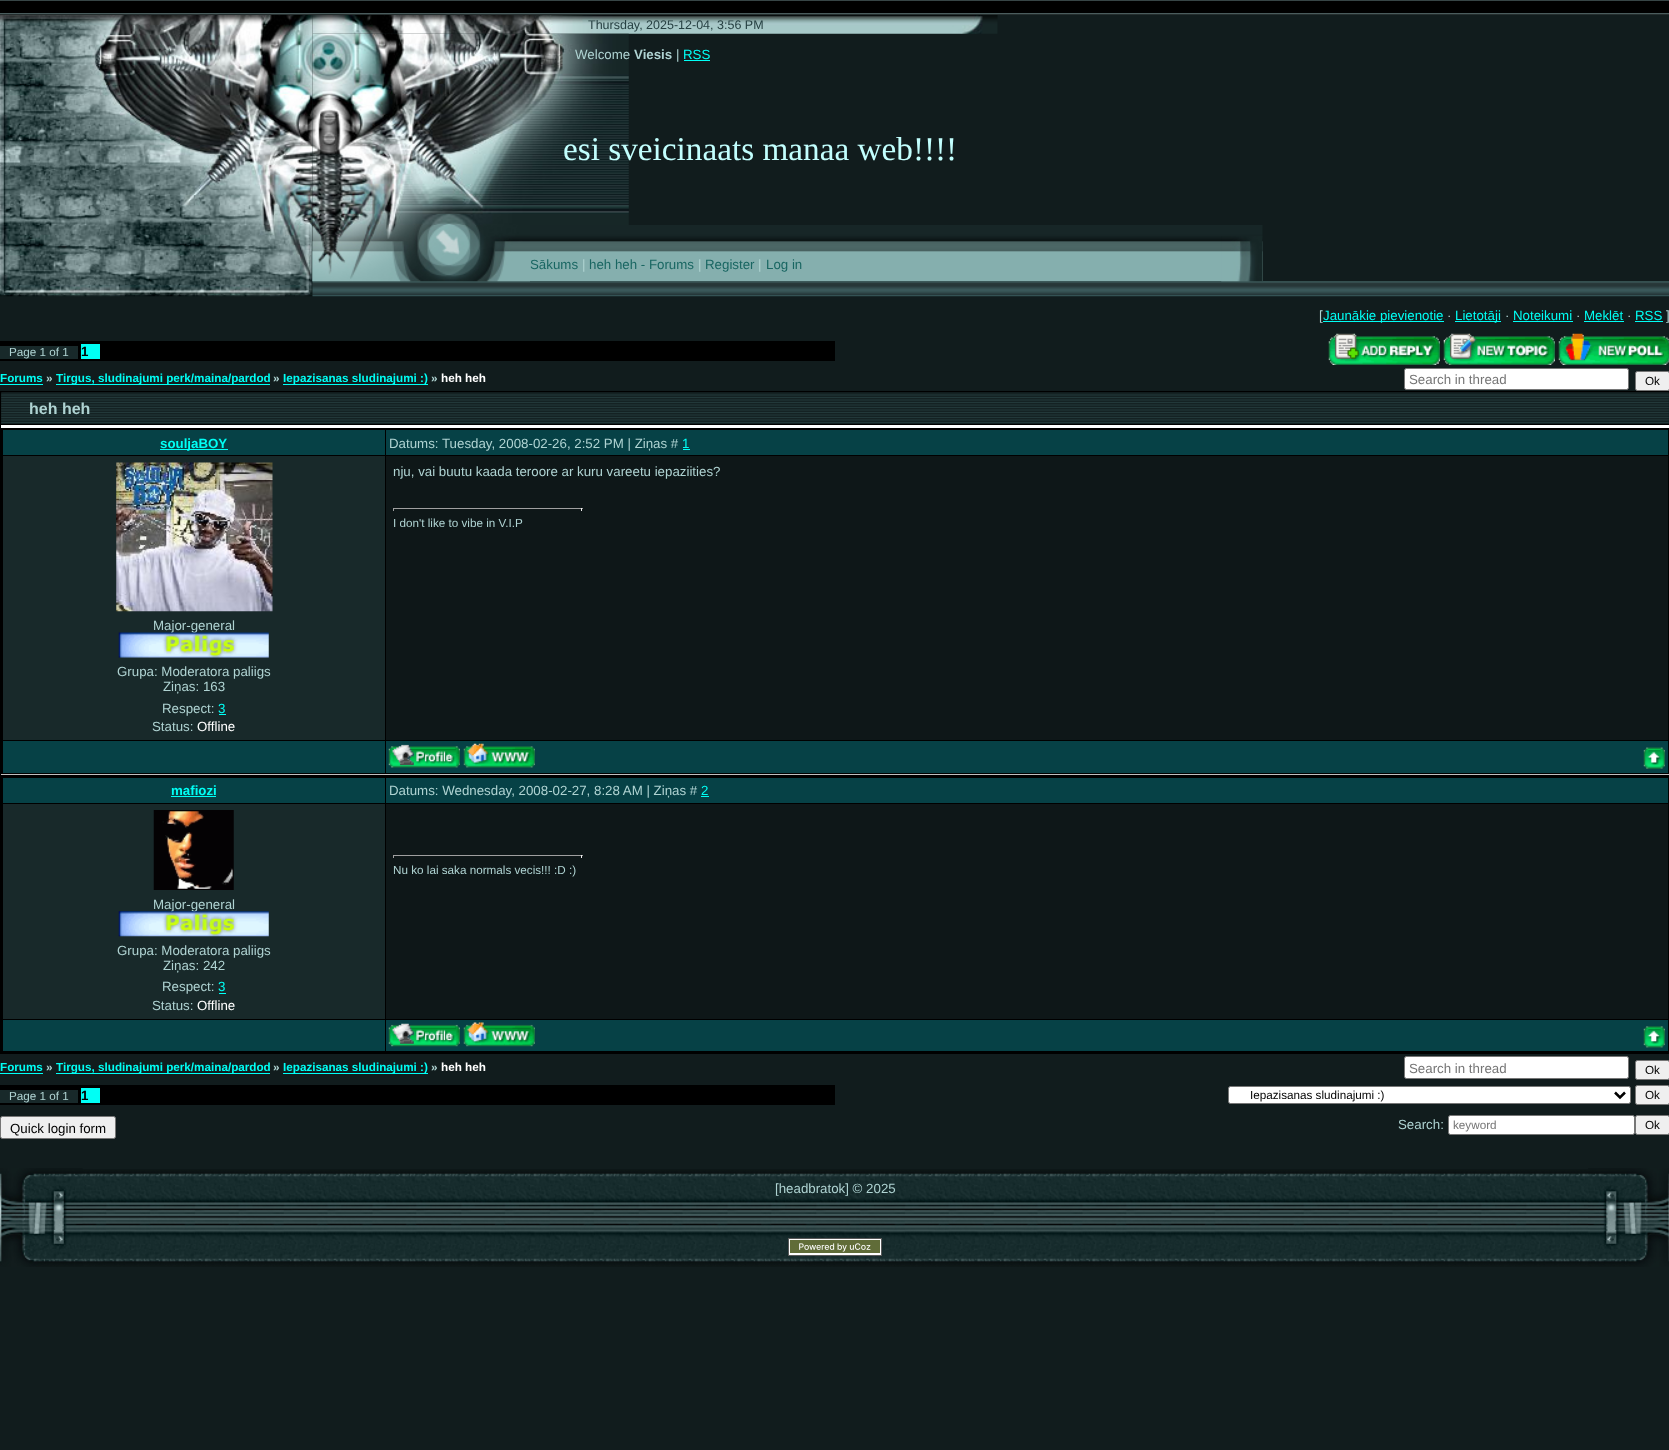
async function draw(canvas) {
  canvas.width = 1669;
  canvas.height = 1450;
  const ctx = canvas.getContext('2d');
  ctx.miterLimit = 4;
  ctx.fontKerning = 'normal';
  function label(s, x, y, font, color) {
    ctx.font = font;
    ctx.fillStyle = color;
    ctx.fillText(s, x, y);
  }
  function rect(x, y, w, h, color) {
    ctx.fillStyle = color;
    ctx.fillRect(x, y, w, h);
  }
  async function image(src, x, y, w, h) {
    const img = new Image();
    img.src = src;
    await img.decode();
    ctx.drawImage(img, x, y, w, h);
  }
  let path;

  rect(0, 0, 1669, 1450, '#111c1d');
  await image('assets/img1.png', 0, 0, 1669, 15);
  await image('assets/img2.png', 0, 15, 313, 282);
  await image('assets/img3.png', 312, 15, 686, 19);
  label('Thursday, 2025-12-04, 3:56 PM', 588, 29, '12.5px Liberation Sans', '#274143');
  await image('assets/img4.png', 312, 33, 317, 192);
  label('Welcome', 575, 59, '13.3px Liberation Sans', '#afd3d2');
  label('Viesis', 634, 59, 'bold 13.3px Liberation Sans', '#afd3d2');
  label('|', 676, 59, '13.3px Liberation Sans', '#afd3d2');
  label('RSS', 683, 59, '13.3px Liberation Sans', '#00fff5');
  rect(684, 60, 26, 1, '#00fff5');
  label('esi sveicinaats manaa web!!!!', 563, 160, '33.25px Liberation Serif', '#c2fffe');
  await image('assets/img5.png', 312, 225, 951, 57);
  await image('assets/img8.png', 312, 281, 1357, 16);
  await image('assets/img6.png', 312, 225, 218, 57);
  label('Sākums', 530, 269, '13.3px Liberation Sans', '#196662');
  label('|', 582, 269, '13.3px Liberation Sans', '#afd3d2');
  label('heh heh - Forums', 589, 269, '13.3px Liberation Sans', '#196662');
  label('|', 698, 269, '13.3px Liberation Sans', '#afd3d2');
  label('Register', 705, 269, '13.3px Liberation Sans', '#196662');
  label('|', 758, 269, '13.3px Liberation Sans', '#afd3d2');
  label('Log in', 766, 269, '13.3px Liberation Sans', '#196662');
  await image('assets/img7.png', 1221, 236, 42, 46);
  label('[', 1319, 320, '13.3px Liberation Sans', '#afd3d2');
  rect(1323, 321, 121, 1, '#00fff5');
  label('Jaunākie pievienotie', 1323, 320, '13.3px Liberation Sans', '#00fff5');
  label('·', 1447, 320, '13.3px Liberation Sans', '#afd3d2');
  rect(1455, 321, 46, 1, '#00fff5');
  label('Lietotāji', 1455, 320, '13.3px Liberation Sans', '#00fff5');
  label('·', 1505, 320, '13.3px Liberation Sans', '#afd3d2');
  label('Noteikumi', 1513, 320, '13.3px Liberation Sans', '#00fff5');
  rect(1513, 321, 60, 1, '#00fff5');
  label('·', 1576, 320, '13.3px Liberation Sans', '#afd3d2');
  label('Meklēt', 1584, 320, '13.3px Liberation Sans', '#00fff5');
  rect(1584, 321, 40, 1, '#00fff5');
  label('·', 1627, 320, '13.3px Liberation Sans', '#afd3d2');
  label('RSS', 1635, 320, '13.3px Liberation Sans', '#00fff5');
  rect(1635, 321, 28, 1, '#00fff5');
  label(']', 1666, 320, '13.3px Liberation Sans', '#afd3d2');
  rect(0, 341, 835, 20, '#000');
  rect(0, 346, 78, 13, '#18292a');
  label('Page 1 of 1', 9, 356, '11.7px Liberation Sans', '#afd3d2');
  rect(81, 344, 19, 15, '#00fff5');
  label('1', 81, 356, 'bold 13.3px Liberation Sans', '#000');
  await image('assets/img9.png', 1328, 333, 112, 32);
  await image('assets/img10.png', 1443, 333, 112, 32);
  await image('assets/img11.png', 1558, 333, 111, 32);
  label('Forums', 0, 382, 'bold 11.7px Liberation Sans', '#00fff5');
  rect(0, 384, 43, 1, '#00fff5');
  label('»', 46, 382, 'bold 11.7px Liberation Sans', '#afd3d2');
  rect(56, 384, 214, 1, '#00fff5');
  label('Tirgus, sludinajumi perk/maina/pardod', 56, 382, 'bold 11.7px Liberation Sans', '#00fff5');
  label('»', 273, 382, 'bold 11.7px Liberation Sans', '#afd3d2');
  rect(283, 384, 145, 1, '#00fff5');
  label('Iepazisanas sludinajumi :)', 283, 382, 'bold 11.7px Liberation Sans', '#00fff5');
  label('»', 431, 382, 'bold 11.7px Liberation Sans', '#afd3d2');
  label('heh heh', 441, 382, 'bold 11.7px Liberation Sans', '#fff');
  ctx.beginPath();
  ctx.roundRect(1404.5, 368.5, 224, 21, 2);
  ctx.fill();
  ctx.strokeStyle = '#767676';
  ctx.stroke();
  label('Search in thread', 1409, 384, '13.3px Liberation Sans', '#757575');
  ctx.fillStyle = '#efefef';
  ctx.beginPath();
  ctx.roundRect(1635.5, 371.5, 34, 19, 2);
  ctx.fill();
  ctx.stroke();
  label('Ok', 1645, 385, '11.7px Liberation Sans', '#000');
  rect(0, 391, 1669, 663, '#000');
  rect(1, 393, 1668, 31, '#111c1d');
  await image('assets/img12.png', 1, 392, 1668, 32);
  label('heh heh', 29, 414, 'bold 16px Liberation Sans', '#afd3d2');
  rect(1, 425, 1668, 3, '#fff');
  rect(1, 774, 1668, 1, '#c0c0c0');
  rect(3, 430, 382, 25, '#064146');
  rect(160, 449, 68, 1, '#00fff5');
  label('souljaBOY', 160, 448, 'bold 13.3px Liberation Sans', '#00fff5');
  rect(386, 430, 1282, 25, '#064146');
  label('Datums: Tuesday, 2008-02-26, 2:52 PM | Ziņas #', 389, 448, '13.3px Liberation Sans', '#afd3d2');
  label('1', 682, 448, '13.3px Liberation Sans', '#00fff5');
  rect(683, 449, 7, 1, '#00fff5');
  rect(386, 456, 1282, 284, '#0e1718');
  label('nju, vai buutu kaada teroore ar kuru vareetu iepaziities?', 393, 476, '13.3px Liberation Sans', '#afd3d2');
  rect(393, 508, 190, 1, '#9f9f9f');
  rect(581, 508, 1, 3, '#eee');
  rect(393, 508, 1, 3, '#9f9f9f');
  label('I don\'t like to vibe in V.I.P', 393, 527, '11.7px Liberation Sans', '#afd3d2');
  rect(3, 456, 382, 284, '#18292a');
  await image('assets/img13.png', 116, 462, 157, 150);
  label('Major-general', 153, 630, '13.3px Liberation Sans', '#afd3d2');
  await image('assets/img14.png', 118, 632, 151, 26);
  label('Grupa: Moderatora paliigs', 117, 676, '13.3px Liberation Sans', '#afd3d2');
  label('Ziņas: 163', 163, 691, '13.3px Liberation Sans', '#afd3d2');
  label('Respect:', 162, 713, '13.3px Liberation Sans', '#afd3d2');
  label('3', 218, 713, '13.3px Liberation Sans', '#00fff5');
  rect(219, 714, 7, 1, '#00fff5');
  label('Status:', 152, 731, '13.3px Liberation Sans', '#afd3d2');
  label('Offline', 197, 731, '13.3px Liberation Sans', '#fff');
  rect(3, 741, 382, 32, '#064146');
  rect(386, 741, 1282, 32, '#064146');
  await image('assets/img15.png', 388, 744, 72, 24);
  await image('assets/img16.png', 463, 743, 72, 25);
  await image('assets/img17.png', 1643, 747, 22, 22);
  rect(3, 778, 382, 25, '#064146');
  label('mafiozi', 171, 795, 'bold 13.3px Liberation Sans', '#00fff5');
  rect(171, 796, 45, 1, '#00fff5');
  rect(386, 778, 1282, 25, '#064146');
  label('Datums: Wednesday, 2008-02-27, 8:28 AM | Ziņas #', 389, 795, '13.3px Liberation Sans', '#afd3d2');
  label('2', 701, 795, '13.3px Liberation Sans', '#00fff5');
  rect(701, 796, 8, 1, '#00fff5');
  rect(386, 804, 1282, 215, '#0e1718');
  rect(393, 855, 190, 1, '#9f9f9f');
  rect(581, 855, 1, 3, '#eee');
  rect(393, 855, 1, 3, '#9f9f9f');
  label('Nu ko lai saka normals vecis!!! :D :)', 393, 874, '11.7px Liberation Sans', '#afd3d2');
  rect(3, 804, 382, 215, '#18292a');
  await image('assets/img18.png', 153, 810, 81, 80);
  label('Major-general', 153, 909, '13.3px Liberation Sans', '#afd3d2');
  await image('assets/img19.png', 118, 911, 151, 26);
  label('Grupa: Moderatora paliigs', 117, 955, '13.3px Liberation Sans', '#afd3d2');
  label('Ziņas: 242', 163, 970, '13.3px Liberation Sans', '#afd3d2');
  label('Respect:', 162, 991, '13.3px Liberation Sans', '#afd3d2');
  label('3', 218, 991, '13.3px Liberation Sans', '#00fff5');
  rect(219, 993, 7, 1, '#00fff5');
  label('Status:', 152, 1010, '13.3px Liberation Sans', '#afd3d2');
  label('Offline', 197, 1010, '13.3px Liberation Sans', '#fff');
  rect(3, 1020, 382, 31, '#064146');
  rect(386, 1020, 1282, 31, '#064146');
  await image('assets/img20.png', 388, 1023, 72, 24);
  await image('assets/img21.png', 463, 1022, 72, 25);
  await image('assets/img22.png', 1643, 1026, 22, 22);
  label('Forums', 0, 1071, 'bold 11.7px Liberation Sans', '#00fff5');
  rect(0, 1073, 43, 1, '#00fff5');
  label('»', 46, 1071, 'bold 11.7px Liberation Sans', '#afd3d2');
  rect(56, 1073, 214, 1, '#00fff5');
  label('Tirgus, sludinajumi perk/maina/pardod', 56, 1071, 'bold 11.7px Liberation Sans', '#00fff5');
  label('»', 273, 1071, 'bold 11.7px Liberation Sans', '#afd3d2');
  rect(283, 1073, 145, 1, '#00fff5');
  label('Iepazisanas sludinajumi :)', 283, 1071, 'bold 11.7px Liberation Sans', '#00fff5');
  label('»', 431, 1071, 'bold 11.7px Liberation Sans', '#afd3d2');
  label('heh heh', 441, 1071, 'bold 11.7px Liberation Sans', '#fff');
  ctx.beginPath();
  ctx.roundRect(1404.5, 1056.5, 224, 22, 2);
  ctx.fill();
  ctx.stroke();
  label('Search in thread', 1409, 1073, '13.3px Liberation Sans', '#757575');
  ctx.fillStyle = '#efefef';
  ctx.beginPath();
  ctx.roundRect(1635.5, 1060.5, 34, 19, 2);
  ctx.fill();
  ctx.stroke();
  label('Ok', 1645, 1074, '11.7px Liberation Sans', '#000');
  rect(0, 1085, 835, 20, '#000');
  rect(0, 1090, 78, 13, '#18292a');
  label('Page 1 of 1', 9, 1100, '11.7px Liberation Sans', '#afd3d2');
  rect(81, 1088, 19, 15, '#00fff5');
  label('1', 81, 1100, 'bold 13.3px Liberation Sans', '#000');
  ctx.fillStyle = '#fff';
  ctx.beginPath();
  ctx.roundRect(1228.5, 1086.5, 402, 17, 2);
  ctx.fill();
  ctx.stroke();
  path = new Path2D('M1615 1092.5L1620 1097.5L1625 1092.5');
  ctx.strokeStyle = '#000';
  ctx.lineWidth = 2.5;
  ctx.stroke(path);
  label('Iepazisanas sludinajumi :)', 1250, 1099, '11.7px Liberation Sans', '#000');
  ctx.fillStyle = '#efefef';
  ctx.beginPath();
  ctx.roundRect(1635.5, 1085.5, 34, 19, 2);
  ctx.fill();
  ctx.strokeStyle = '#767676';
  ctx.lineWidth = 1;
  ctx.stroke();
  label('Ok', 1645, 1099, '11.7px Liberation Sans', '#000');
  ctx.fillStyle = '#efefef';
  ctx.beginPath();
  ctx.roundRect(0.5, 1116.5, 115, 22, 2);
  ctx.fill();
  ctx.stroke();
  label('Quick login form', 10, 1133, '13.3px Liberation Sans', '#000');
  label('Search:', 1398, 1129, '13.3px Liberation Sans', '#afd3d2');
  ctx.fillStyle = '#fff';
  ctx.beginPath();
  ctx.roundRect(1448.5, 1115.5, 186, 19, 2);
  ctx.fill();
  ctx.stroke();
  label('keyword', 1453, 1129, '11.7px Liberation Sans', '#757575');
  ctx.fillStyle = '#efefef';
  ctx.beginPath();
  ctx.roundRect(1635.5, 1115.5, 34, 19, 2);
  ctx.fill();
  ctx.stroke();
  label('Ok', 1645, 1129, '11.7px Liberation Sans', '#000');
  await image('assets/img23.png', 82, 1169, 1506, 98);
  await image('assets/img24.png', 0, 1168, 83, 99);
  label('[headbratok] © 2025', 775, 1193, '13.3px Liberation Sans', '#afd3d2');
  await image('assets/img25.png', 1588, 1168, 81, 99);
  await image('assets/img26.png', 788, 1238, 94, 18);
}

draw(document.querySelector('canvas'));
